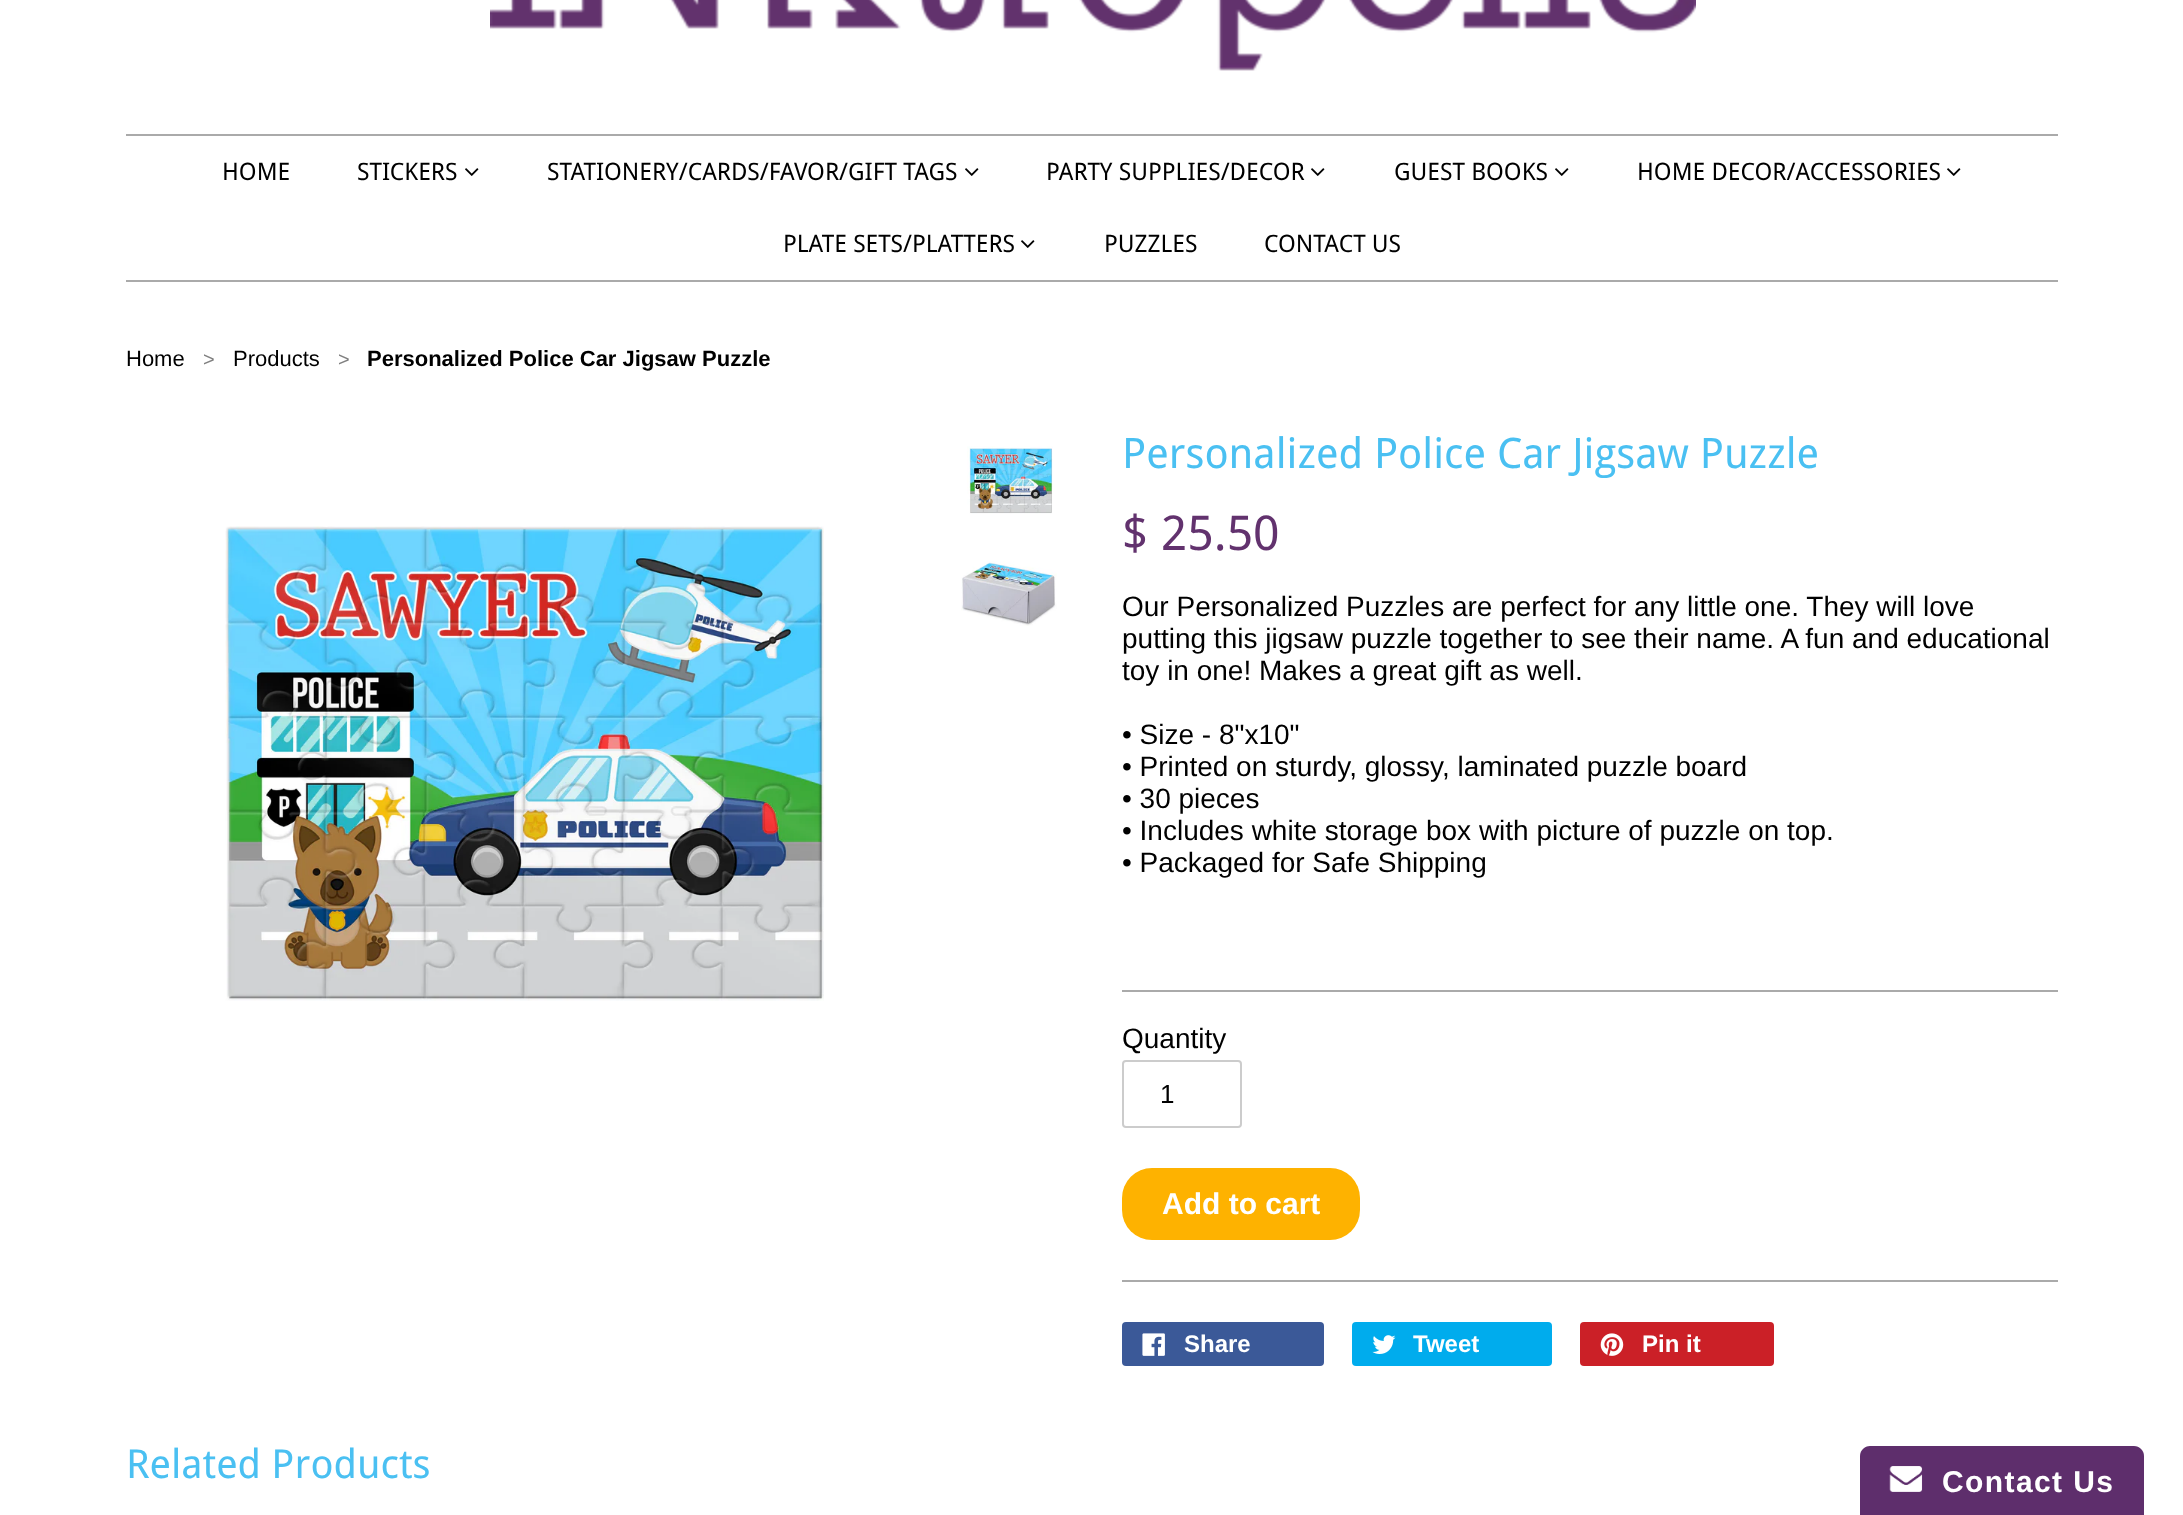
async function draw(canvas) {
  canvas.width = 2183;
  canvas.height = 1515;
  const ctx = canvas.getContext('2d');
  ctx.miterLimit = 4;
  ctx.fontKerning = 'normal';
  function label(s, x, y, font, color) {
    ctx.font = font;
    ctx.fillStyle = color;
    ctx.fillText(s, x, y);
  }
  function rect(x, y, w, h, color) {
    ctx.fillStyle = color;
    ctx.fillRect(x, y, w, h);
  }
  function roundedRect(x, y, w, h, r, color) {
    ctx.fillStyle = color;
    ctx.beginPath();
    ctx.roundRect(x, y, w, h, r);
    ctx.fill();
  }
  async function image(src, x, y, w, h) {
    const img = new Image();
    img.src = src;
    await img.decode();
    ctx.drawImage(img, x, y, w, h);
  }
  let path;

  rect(0, 0, 2183, 1515, '#fff');
  await image('assets/img1.png', 490, 0, 1206, 71);
  rect(126, 134, 1932, 2, '#aaa');
  rect(126, 280, 1932, 2, '#aaa');
  label('HOME', 222, 180, '24px Droid Sans', '#000');
  label('STICKERS', 357, 180, '24px Droid Sans', '#000');
  await image('assets/img2.png', 465, 168, 14, 8);
  label('STATIONERY/CARDS/FAVOR/GIFT TAGS', 547, 180, '24px Droid Sans', '#000');
  await image('assets/img2.png', 965, 168, 14, 8);
  label('PARTY SUPPLIES/DECOR', 1046, 180, '24px Droid Sans', '#000');
  await image('assets/img2.png', 1311, 168, 14, 8);
  label('GUEST BOOKS', 1394, 180, '24px Droid Sans', '#000');
  await image('assets/img2.png', 1555, 168, 14, 8);
  label('HOME DECOR/ACCESSORIES', 1637, 180, '24px Droid Sans', '#000');
  await image('assets/img2.png', 1947, 168, 14, 8);
  label('PLATE SETS/PLATTERS', 783, 252, '24px Droid Sans', '#000');
  await image('assets/img2.png', 1021, 240, 14, 8);
  label('PUZZLES', 1104, 252, '24px Droid Sans', '#000');
  label('CONTACT US', 1264, 252, '24px Droid Sans', '#000');
  label('Home', 126, 366, '22px Liberation Sans', '#000');
  label('>', 203, 366, '20px Liberation Sans', '#808080');
  label('Products', 233, 366, '22px Liberation Sans', '#000');
  label('>', 338, 366, '20px Liberation Sans', '#808080');
  label('Personalized Police Car Jigsaw Puzzle', 367, 366, 'bold 22px Liberation Sans', '#000');
  await image('assets/img3.png', 225, 526, 599, 475);
  await image('assets/img4.png', 967, 446, 86, 68);
  await image('assets/img5.png', 961, 561, 96, 65);
  label('Personalized Police Car Jigsaw Puzzle', 1122, 468, '42px Droid Sans', '#4ac0f2');
  label('$ 25.50', 1122, 550, '48px Droid Sans', '#62326e');
  label('Our Personalized Puzzles are perfect for any little one. They will love', 1122, 616, '28px Liberation Sans', '#000');
  label('putting this jigsaw puzzle together to see their name. A fun and educational', 1122, 648, '28px Liberation Sans', '#000');
  label('toy in one! Makes a great gift as well.', 1122, 680, '28px Liberation Sans', '#000');
  label('• Size - 8"x10"', 1122, 744, '28px Liberation Sans', '#000');
  label('• Printed on sturdy, glossy, laminated puzzle board', 1122, 776, '28px Liberation Sans', '#000');
  label('• 30 pieces', 1122, 808, '28px Liberation Sans', '#000');
  label('• Includes white storage box with picture of puzzle on top.', 1122, 840, '28px Liberation Sans', '#000');
  label('• Packaged for Safe Shipping', 1122, 872, '28px Liberation Sans', '#000');
  rect(1122, 990, 936, 2, '#aaa');
  rect(1122, 1280, 936, 2, '#aaa');
  label('Quantity', 1122, 1048, '28px Liberation Sans', '#000');
  ctx.beginPath();
  ctx.roundRect(1123, 1061, 118, 66, 3);
  ctx.strokeStyle = '#ccc';
  ctx.lineWidth = 2;
  ctx.stroke();
  label('1', 1160, 1103, '26px Liberation Sans', '#000');
  roundedRect(1122, 1168, 238, 72, 30, '#feb200');
  label('Add to cart', 1162, 1214, 'bold 30px Liberation Sans', '#fff');
  roundedRect(1122, 1322, 202, 44, 4, '#3b5998');
  await image('assets/img6.png', 1142, 1333, 23, 23);
  label('Share', 1184, 1352, 'bold 24px Liberation Sans', '#fff');
  roundedRect(1352, 1322, 200, 44, 4, '#00aced');
  await image('assets/img7.png', 1372, 1335, 24, 19);
  label('Tweet', 1413, 1352, 'bold 24px Liberation Sans', '#fff');
  roundedRect(1580, 1322, 194, 44, 4, '#cb2027');
  await image('assets/img8.png', 1600, 1333, 24, 23);
  label('Pin it', 1642, 1352, 'bold 24px Liberation Sans', '#fff');
  label('Related Products', 126, 1478, '40px Droid Sans', '#4ac0f2');
  ctx.fillStyle = '#5e2e6c';
  path = new Path2D('M1870 1446H2134C2139.5 1446 2144 1450.5 2144 1456V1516H1860V1456C1860 1450.5 1864.5 1446 1870 1446Z');
  ctx.fill(path);
  await image('assets/img9.png', 1889, 1466, 34, 26);
  ctx.letterSpacing = '1.4px';
  label('Contact Us', 1942, 1492, 'bold 30px Liberation Sans', '#fff');
}

draw(document.querySelector('canvas'));
